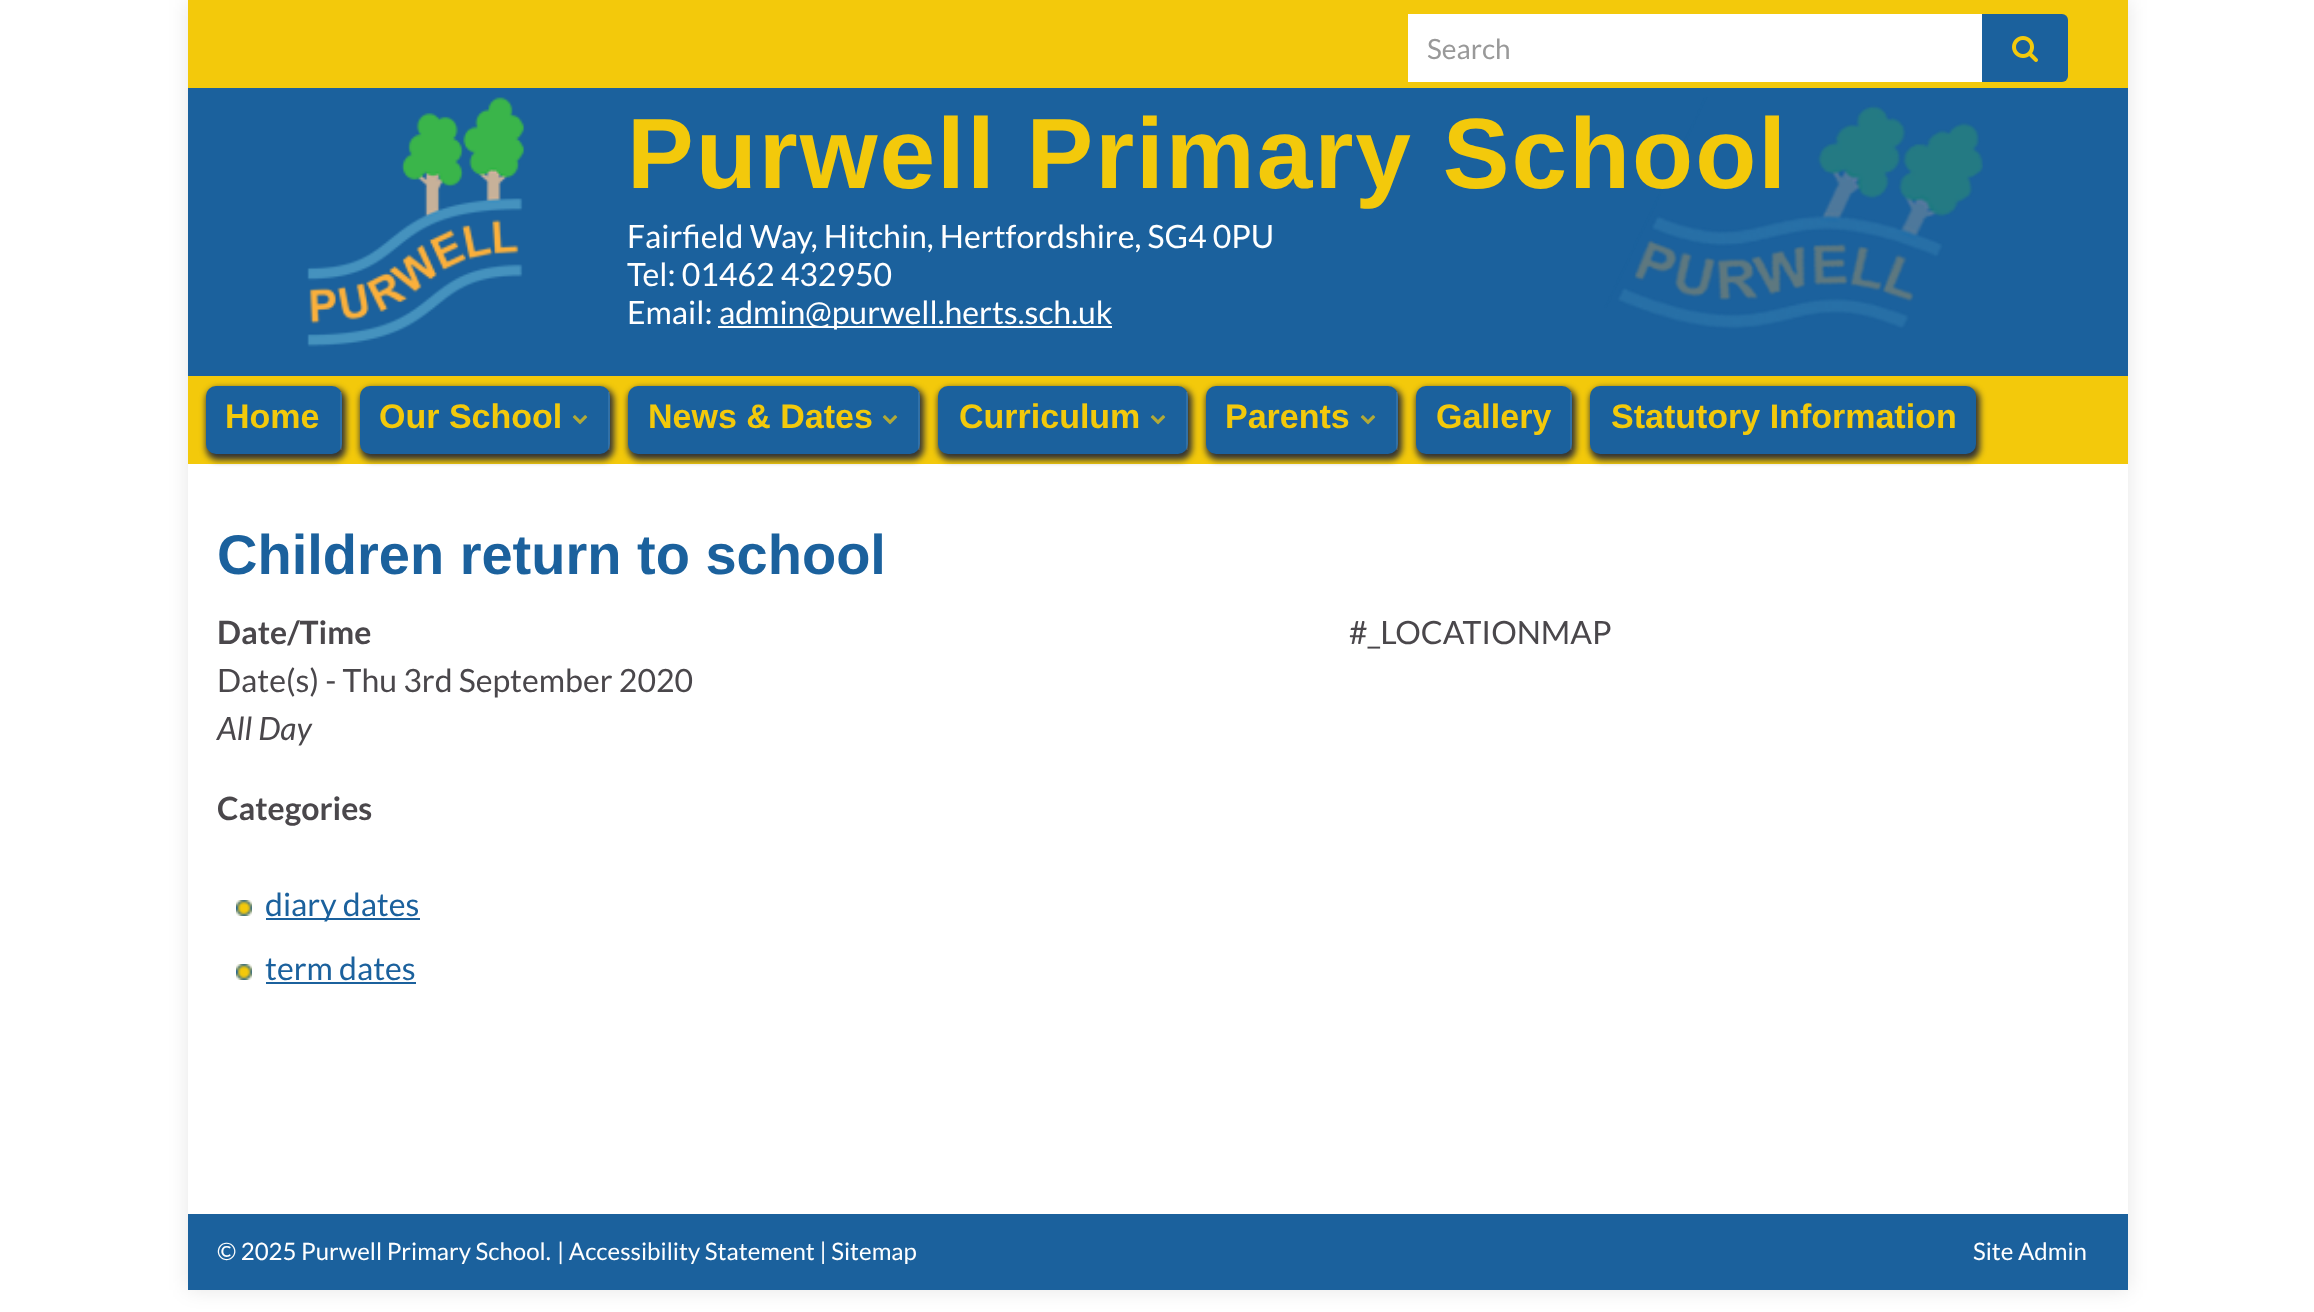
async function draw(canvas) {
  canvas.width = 2314;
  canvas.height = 1312;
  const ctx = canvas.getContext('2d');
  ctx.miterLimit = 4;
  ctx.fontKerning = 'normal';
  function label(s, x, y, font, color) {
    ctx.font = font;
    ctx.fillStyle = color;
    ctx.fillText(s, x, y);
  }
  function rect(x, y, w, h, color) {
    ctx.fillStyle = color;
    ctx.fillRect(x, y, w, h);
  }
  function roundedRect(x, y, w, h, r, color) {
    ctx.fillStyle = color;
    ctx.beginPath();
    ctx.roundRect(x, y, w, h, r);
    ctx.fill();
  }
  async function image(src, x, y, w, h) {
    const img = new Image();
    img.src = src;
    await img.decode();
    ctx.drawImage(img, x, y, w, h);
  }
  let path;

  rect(0, 0, 2314, 1312, '#fff');
  ctx.save();
  path = new Path2D('M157 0H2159V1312H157ZM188 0H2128V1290H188Z');
  ctx.clip(path, 'evenodd');
  ctx.fillStyle = '#0000001a';
  ctx.filter = 'blur(10px)';
  ctx.beginPath();
  ctx.rect(188, 0, 1940, 1290);
  ctx.fill();
  ctx.filter = 'none';
  ctx.restore();
  rect(188, 0, 1940, 88, '#f3c90b');
  rect(1408, 14, 574, 68, '#fff');
  label('Search', 1427, 59, '28px Lato', '#999');
  ctx.fillStyle = '#1b619d';
  ctx.beginPath();
  ctx.roundRect(1982, 14, 86, 68, [0, 6, 6, 0]);
  ctx.fill();
  await image('assets/img1.png', 2012, 36, 26, 26);
  rect(188, 376, 1940, 88, '#f3c90b');
  rect(188, 88, 1940, 288, '#1b619d');
  await image('assets/img3.png', 307, 97, 1676, 250);
  ctx.letterSpacing = '2px';
  label('Purwell Primary School', 627, 188, 'bold 100px Liberation Sans', '#f3c90b');
  ctx.fillStyle = '#333';
  ctx.filter = 'blur(3px)';
  ctx.beginPath();
  ctx.roundRect(206, 388, 140, 72, 12);
  ctx.fill();
  ctx.filter = 'none';
  roundedRect(206, 386, 136, 68, 10, '#1b619d');
  rect(340, 392, 2, 58, '#ffffff1a');
  ctx.letterSpacing = '0px';
  label('Home', 225, 428, 'bold 34px Liberation Sans', '#f3c90b');
  ctx.fillStyle = '#333';
  ctx.filter = 'blur(3px)';
  ctx.beginPath();
  ctx.roundRect(360, 388, 254, 72, 12);
  ctx.fill();
  ctx.filter = 'none';
  roundedRect(360, 386, 250, 68, 10, '#1b619d');
  rect(608, 392, 2, 58, '#ffffff1a');
  label('Our School', 379, 428, 'bold 34px Liberation Sans', '#f3c90b');
  await image('assets/img2.png', 572, 415, 16, 10);
  ctx.fillStyle = '#333';
  ctx.filter = 'blur(3px)';
  ctx.beginPath();
  ctx.roundRect(628, 388, 296, 72, 12);
  ctx.fill();
  ctx.filter = 'none';
  roundedRect(628, 386, 292, 68, 10, '#1b619d');
  rect(918, 392, 2, 58, '#ffffff1a');
  label('News & Dates', 648, 428, 'bold 34px Liberation Sans', '#f3c90b');
  await image('assets/img2.png', 882, 415, 16, 10);
  ctx.fillStyle = '#333';
  ctx.filter = 'blur(3px)';
  ctx.beginPath();
  ctx.roundRect(938, 388, 254, 72, 12);
  ctx.fill();
  ctx.filter = 'none';
  roundedRect(938, 386, 250, 68, 10, '#1b619d');
  rect(1186, 392, 2, 58, '#ffffff1a');
  label('Curriculum', 959, 428, 'bold 34px Liberation Sans', '#f3c90b');
  await image('assets/img2.png', 1150, 415, 16, 10);
  ctx.fillStyle = '#333';
  ctx.filter = 'blur(3px)';
  ctx.beginPath();
  ctx.roundRect(1206, 388, 196, 72, 12);
  ctx.fill();
  ctx.filter = 'none';
  roundedRect(1206, 386, 192, 68, 10, '#1b619d');
  rect(1396, 392, 2, 58, '#ffffff1a');
  label('Parents', 1225, 428, 'bold 34px Liberation Sans', '#f3c90b');
  await image('assets/img2.png', 1360, 415, 16, 10);
  ctx.fillStyle = '#333';
  ctx.filter = 'blur(3px)';
  ctx.beginPath();
  ctx.roundRect(1416, 388, 160, 72, 12);
  ctx.fill();
  ctx.filter = 'none';
  roundedRect(1416, 386, 156, 68, 10, '#1b619d');
  rect(1570, 392, 2, 58, '#ffffff1a');
  label('Gallery', 1436, 428, 'bold 34px Liberation Sans', '#f3c90b');
  ctx.fillStyle = '#333';
  ctx.filter = 'blur(3px)';
  ctx.beginPath();
  ctx.roundRect(1590, 388, 390, 72, 12);
  ctx.fill();
  ctx.filter = 'none';
  roundedRect(1590, 386, 386, 68, 10, '#1b619d');
  label('Statutory Information', 1611, 428, 'bold 34px Liberation Sans', '#f3c90b');
  label('Fairfield Way, Hitchin, Hertfordshire, SG4 0PU', 627, 248, '32px Lato', '#fff');
  label('Tel: 01462 432950', 627, 286, '32px Lato', '#fff');
  label('Email:', 627, 324, '32px Lato', '#fff');
  rect(718, 326, 394, 2, '#fff');
  label('admin@purwell.herts.sch.uk', 719, 324, '32px Lato', '#fff');
  label('Children return to school', 217, 574, 'bold 56px Liberation Sans', '#1b619d');
  label('Date/Time', 217, 644, 'bold 32px Lato', '#4a474b');
  label('Date(s) - Thu 3rd September 2020', 217, 692, '32px Lato', '#4a474b');
  label('All Day', 217, 740, 'italic 32px Lato', '#4a474b');
  label('#_LOCATIONMAP', 1349, 644, '32px Lato', '#4a474b');
  label('Categories', 217, 820, 'bold 32px Lato', '#4a474b');
  await image('assets/img4.png', 236, 900, 16, 16);
  rect(266, 918, 154, 2, '#1b619d');
  label('diary dates', 265, 916, '32px Lato', '#1b619d');
  await image('assets/img4.png', 236, 964, 16, 16);
  label('term dates', 265, 980, '32px Lato', '#1b619d');
  rect(266, 982, 150, 2, '#1b619d');
  rect(188, 1214, 1940, 76, '#1b619d');
  label('© 2025 Purwell Primary School.', 217, 1260, '24px Lato', '#fff');
  label('| Accessibility Statement | Sitemap', 557, 1260, '24px Lato', '#fff');
  label('Site Admin', 1973, 1260, '24px Lato', '#fff');
}

draw(document.querySelector('canvas'));
